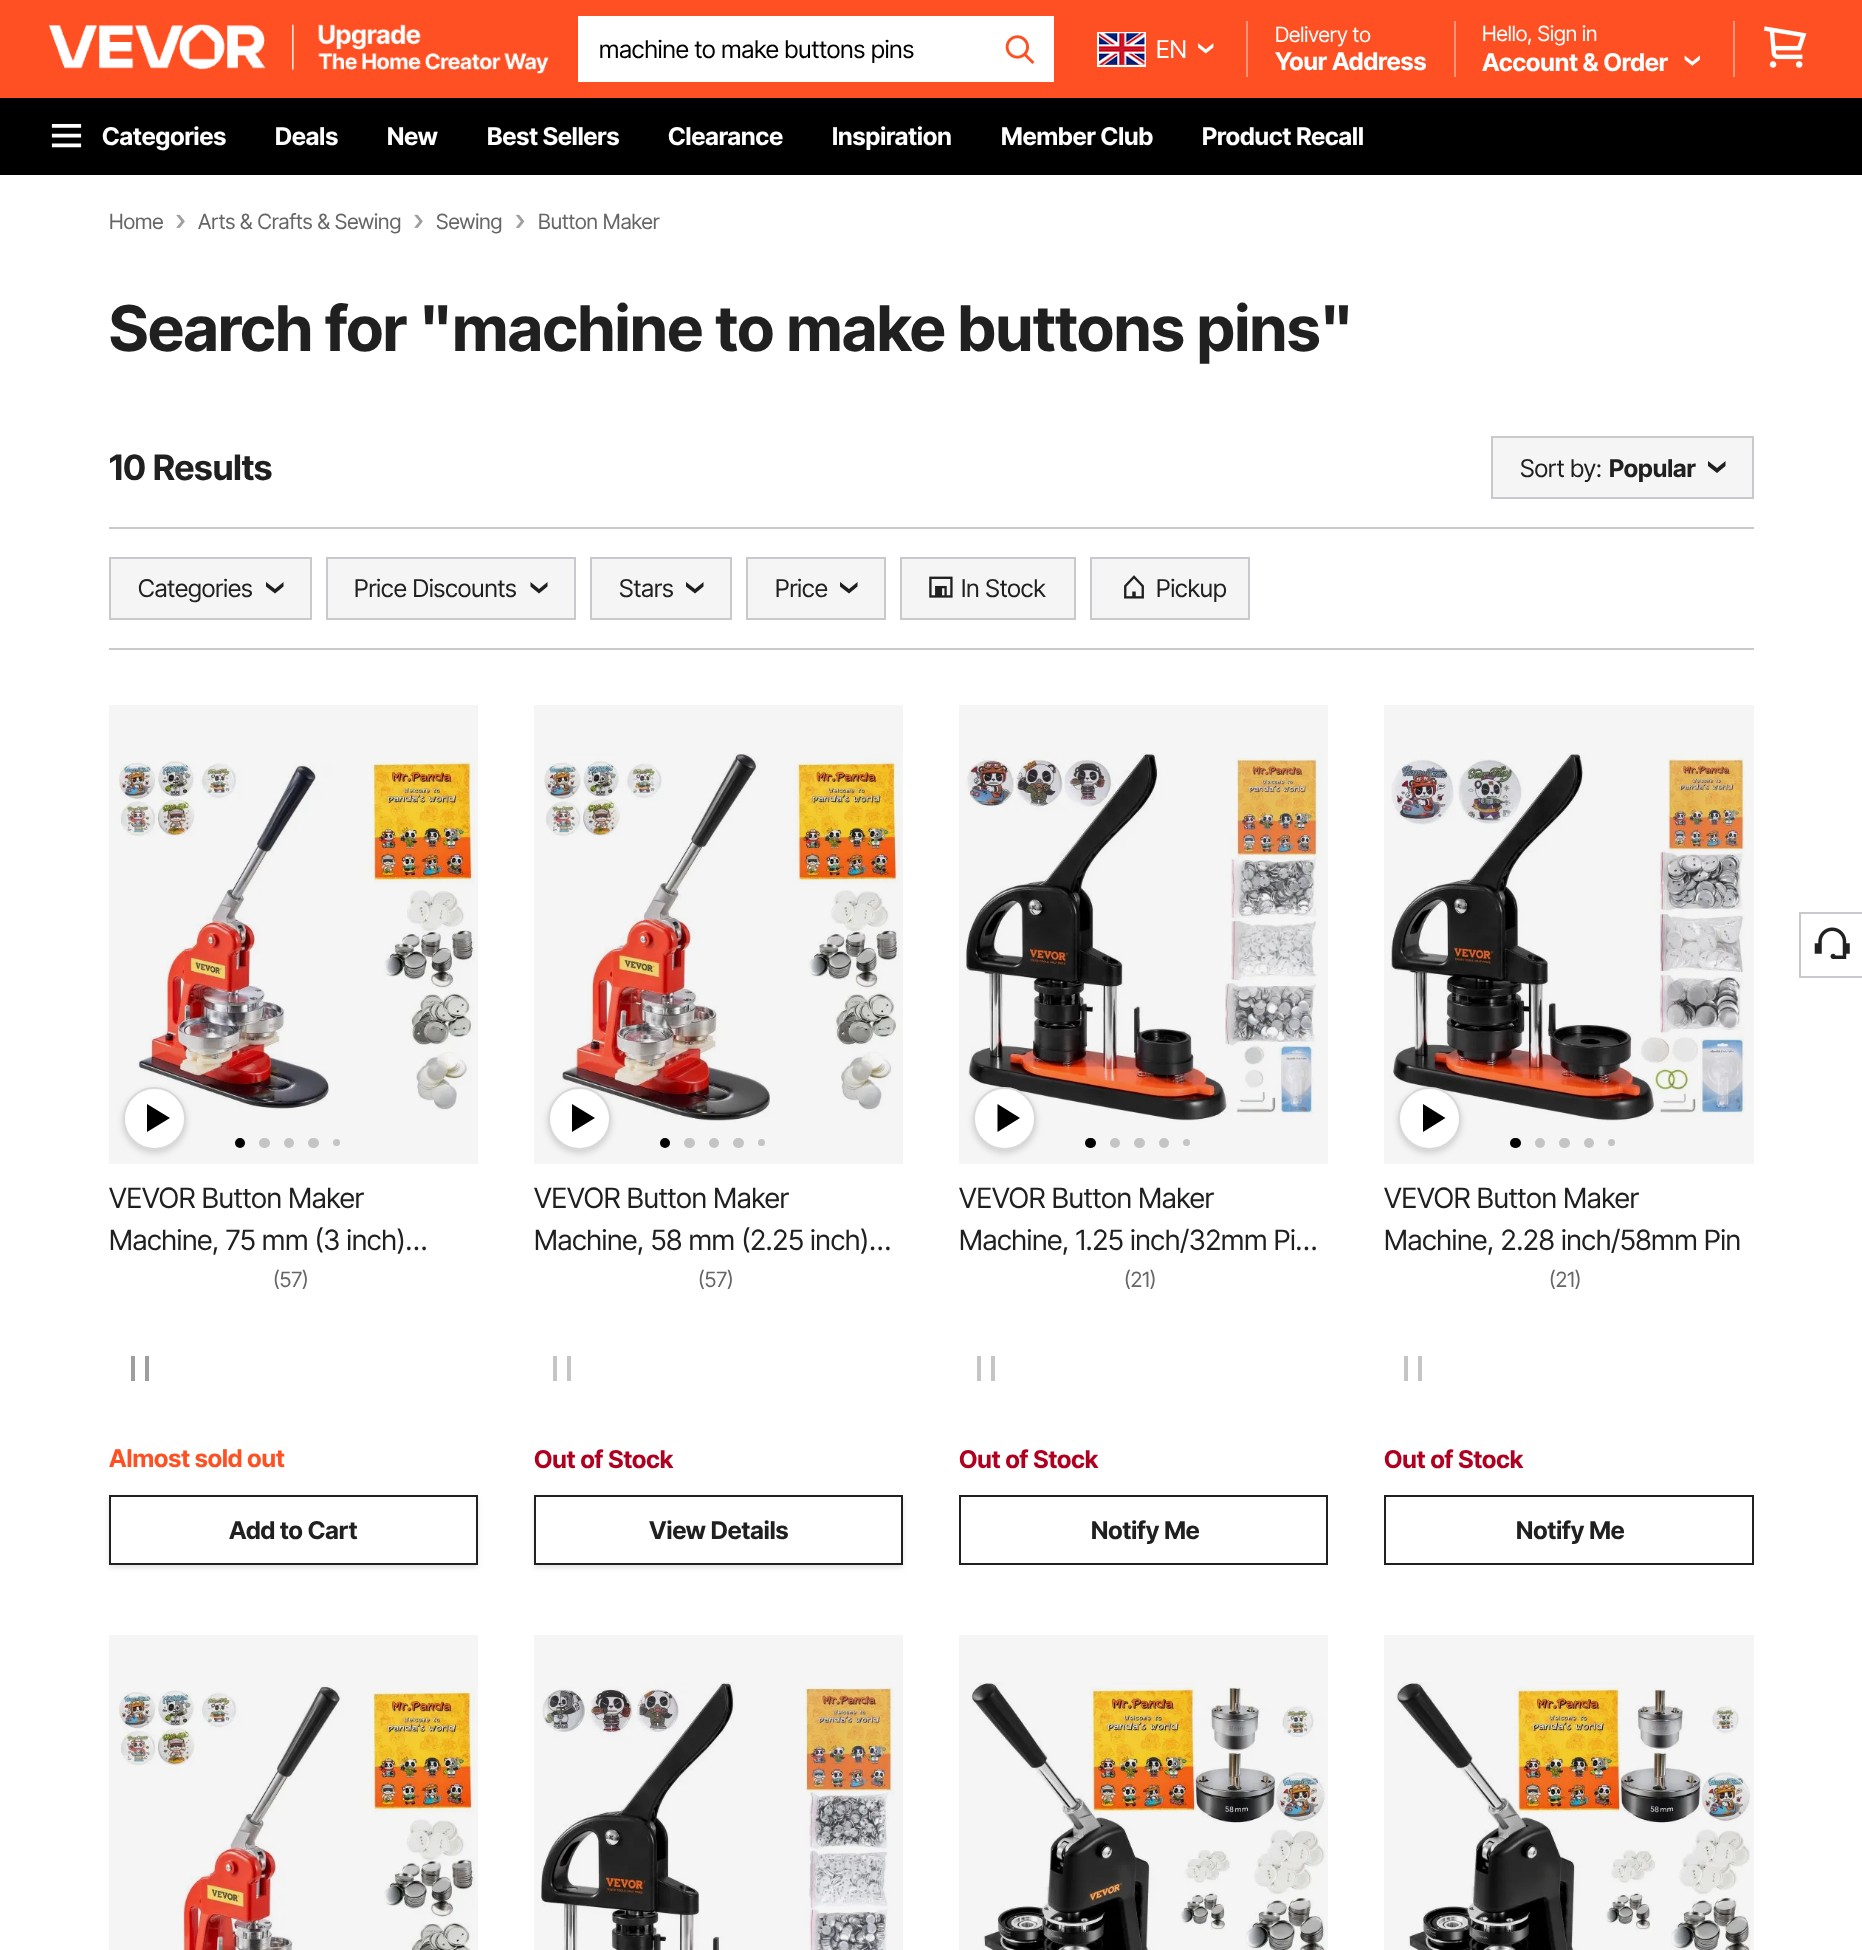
async function draw(canvas) {
  canvas.width = 1862;
  canvas.height = 1950;
  const ctx = canvas.getContext('2d');
  ctx.miterLimit = 4;
  ctx.fontKerning = 'normal';
  function label(s, x, y, font, color) {
    ctx.font = font;
    ctx.fillStyle = color;
    ctx.fillText(s, x, y);
  }
  function rect(x, y, w, h, color) {
    ctx.fillStyle = color;
    ctx.fillRect(x, y, w, h);
  }
  function roundedRect(x, y, w, h, r, color) {
    ctx.fillStyle = color;
    ctx.beginPath();
    ctx.roundRect(x, y, w, h, r);
    ctx.fill();
  }
  async function image(src, x, y, w, h) {
    const img = new Image();
    img.src = src;
    await img.decode();
    ctx.drawImage(img, x, y, w, h);
  }
  let path;

  rect(0, 0, 1862, 1950, '#ff5023');
  await image('assets/img1.png', 49, 24, 500, 50);
  rect(578, 16, 476, 66, '#fff');
  label('machine to make buttons pins', 599, 58, '24.5px Inter Tight', '#000');
  await image('assets/img2.png', 1005, 35, 30, 29);
  ctx.strokeStyle = '#fff';
  ctx.lineWidth = 2;
  ctx.strokeRect(1098, 33, 47, 33);
  await image('assets/img3.png', 1099, 33, 46, 32);
  label('EN', 1156, 58, '24.5px Inter Tight', '#fff');
  await image('assets/img4.png', 1198, 43, 16, 11);
  rect(1246, 21, 2, 56, '#ff967b');
  label('Delivery to', 1275, 42, '21px Inter Tight', '#fff');
  label('Your Address', 1275, 70, 'bold 24.5px Inter Tight', '#fff');
  rect(1454, 21, 2, 56, '#ff967b');
  label('Hello, Sign in', 1482, 41, '21px Inter Tight', '#fff');
  ctx.save();
  ctx.beginPath();
  ctx.rect(1482, 47, 186, 30);
  ctx.clip();
  label('Account & Order', 1482, 71, 'bold 24.5px Inter Tight', '#fff');
  ctx.restore();
  await image('assets/img5.png', 1684, 55, 16, 11);
  rect(1733, 21, 2, 56, '#ff967b');
  await image('assets/img6.png', 1764, 26, 43, 42);
  rect(0, 98, 1862, 77, '#000');
  await image('assets/img7.png', 51, 123, 31, 25);
  label('Categories', 102, 145, 'bold 24.5px Inter Tight', '#fff');
  label('Deals', 275, 145, 'bold 24.5px Inter Tight', '#fff');
  label('New', 387, 145, 'bold 24.5px Inter Tight', '#fff');
  label('Best Sellers', 487, 145, 'bold 24.5px Inter Tight', '#fff');
  label('Clearance', 668, 145, 'bold 24.5px Inter Tight', '#fff');
  label('Inspiration', 832, 145, 'bold 24.5px Inter Tight', '#fff');
  label('Member Club', 1001, 145, 'bold 24.5px Inter Tight', '#fff');
  label('Product Recall', 1202, 145, 'bold 24.5px Inter Tight', '#fff');
  rect(0, 175, 1862, 1775, '#fff');
  rect(1384, 1635, 370, 315, '#f5f5f5');
  rect(959, 1635, 369, 315, '#f5f5f5');
  rect(534, 1635, 369, 315, '#f5f5f5');
  rect(109, 1635, 369, 315, '#f5f5f5');
  rect(1384, 705, 370, 459, '#f5f5f5');
  rect(959, 705, 369, 459, '#f5f5f5');
  rect(534, 705, 369, 459, '#f5f5f5');
  rect(109, 705, 369, 459, '#f5f5f5');
  label('Home', 109, 229, '21px Inter Tight', '#666');
  await image('assets/img8.png', 176, 214, 9, 14);
  label('Arts & Crafts & Sewing', 198, 229, '21px Inter Tight', '#666');
  await image('assets/img8.png', 414, 214, 9, 14);
  label('Sewing', 436, 229, '21px Inter Tight', '#666');
  await image('assets/img9.png', 515, 214, 10, 14);
  label('Button Maker', 538, 229, '21px Inter Tight', '#666');
  label('Search for "machine to make buttons pins', 109, 351, 'bold 63px Inter Tight', '#202020');
  label('"', 1320, 351, 'bold 63px Inter Tight', '#202020');
  label('10 Results', 109, 480, 'bold 35px Inter Tight', '#202020');
  ctx.fillStyle = '#f5f5f5';
  ctx.beginPath();
  ctx.rect(1492, 437, 261, 61);
  ctx.fill();
  ctx.strokeStyle = '#c8c9cc';
  ctx.stroke();
  label('Sort by:', 1520, 477, '24.5px Inter Tight', '#202020');
  label('Popular', 1609, 477, 'bold 24.5px Inter Tight', '#202020');
  path = new Path2D('M1725.5 461V466L1717 473L1708 466V461L1717 468Z');
  ctx.fill(path);
  rect(109, 527, 1645, 2, '#c8c9cc');
  rect(109, 648, 1645, 2, '#c8c9cc');
  ctx.fillStyle = '#f5f5f5';
  ctx.beginPath();
  ctx.rect(110, 558, 201, 61);
  ctx.fill();
  ctx.stroke();
  label('Categories', 138, 597, '24.5px Inter Tight', '#202020');
  path = new Path2D('M283.5 582V586.5L275 593.5L266 586.5V582L275 589Z');
  ctx.fill(path);
  ctx.fillStyle = '#f5f5f5';
  ctx.beginPath();
  ctx.rect(327, 558, 248, 61);
  ctx.fill();
  ctx.stroke();
  label('Price Discounts', 354, 597, '24.5px Inter Tight', '#202020');
  path = new Path2D('M547.5 582V586.5L539 593.5L530.5 586.5V582L539 589Z');
  ctx.fill(path);
  ctx.fillStyle = '#f5f5f5';
  ctx.beginPath();
  ctx.rect(591, 558, 140, 61);
  ctx.fill();
  ctx.stroke();
  label('Stars', 619, 597, '24.5px Inter Tight', '#202020');
  path = new Path2D('M703.5 582V586.5L695 593.5L686 586.5V582L695 589Z');
  ctx.fill(path);
  ctx.fillStyle = '#f5f5f5';
  ctx.beginPath();
  ctx.rect(747, 558, 138, 61);
  ctx.fill();
  ctx.stroke();
  label('Price', 775, 597, '24.5px Inter Tight', '#202020');
  path = new Path2D('M857.5 582V586.5L849 593.5L840 586.5V582L849 589Z');
  ctx.fill(path);
  ctx.fillStyle = '#f5f5f5';
  ctx.beginPath();
  ctx.rect(901, 558, 174, 61);
  ctx.fill();
  ctx.stroke();
  await image('assets/img10.png', 929, 576, 24, 22);
  label('In Stock', 961, 597, '24.5px Inter Tight', '#202020');
  ctx.fillStyle = '#f5f5f5';
  ctx.beginPath();
  ctx.rect(1091, 558, 158, 61);
  ctx.fill();
  ctx.stroke();
  await image('assets/img11.png', 1124, 575, 20, 24);
  label('Pickup', 1156, 597, '24.5px Inter Tight', '#202020');
  await image('assets/img12.png', 118, 760, 357, 350);
  ctx.fillStyle = '#00000029';
  ctx.filter = 'blur(3.5px)';
  ctx.beginPath();
  ctx.roundRect(123, 1090, 63, 63, 31.5);
  ctx.fill();
  ctx.filter = 'none';
  ctx.fillStyle = '#fff';
  ctx.beginPath();
  ctx.arc(154.5, 1118.5, 30.5, 0, 2 * Math.PI);
  ctx.fill();
  ctx.strokeStyle = '#d7d9db';
  ctx.stroke();
  ctx.fillStyle = '#000';
  path = new Path2D('M147 1132V1104L170 1118Z');
  ctx.fill(path);
  ctx.beginPath();
  ctx.arc(240, 1143, 5, 0, 2 * Math.PI);
  ctx.fill();
  roundedRect(259, 1138, 11, 10, 5, '#c4c4c4');
  ctx.beginPath();
  ctx.arc(289, 1143, 5, 0, 2 * Math.PI);
  ctx.fill();
  roundedRect(308, 1138, 11, 10, 5, '#c4c4c4');
  ctx.beginPath();
  ctx.arc(336.5, 1142.5, 3.5, 0, 2 * Math.PI);
  ctx.fill();
  label('VEVOR Button Maker', 109, 1208, '28px Inter Tight', '#202020');
  label('Machine, 75 mm (3 inch)…', 109, 1250, '28px Inter Tight', '#202020');
  label('(57)', 273, 1287, '21px Inter Tight', '#666');
  rect(131, 1356, 4, 25, '#9e9e9e');
  rect(145, 1356, 4, 25, '#9e9e9e');
  label('Almost sold out', 109, 1467, 'bold 24.5px Inter Tight', '#ff5023');
  ctx.save();
  path = new Path2D('M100 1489H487V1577H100ZM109 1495H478V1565H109Z');
  ctx.clip(path, 'evenodd');
  ctx.fillStyle = '#0000001a';
  ctx.filter = 'blur(2.5px)';
  ctx.beginPath();
  ctx.rect(109, 1498, 369, 70);
  ctx.fill();
  ctx.filter = 'none';
  ctx.restore();
  ctx.strokeStyle = '#000000de';
  ctx.strokeRect(110, 1496, 367, 68);
  label('Add to Cart', 229, 1539, 'bold 24.5px Inter Tight', '#202020');
  await image('assets/img13.png', 544, 753, 356, 369);
  ctx.fillStyle = '#00000029';
  ctx.filter = 'blur(3.5px)';
  ctx.beginPath();
  ctx.roundRect(548, 1090, 63, 63, 31.5);
  ctx.fill();
  ctx.filter = 'none';
  ctx.fillStyle = '#fff';
  ctx.beginPath();
  ctx.arc(579.5, 1118.5, 30.5, 0, 2 * Math.PI);
  ctx.fill();
  ctx.strokeStyle = '#d7d9db';
  ctx.stroke();
  ctx.fillStyle = '#000';
  path = new Path2D('M572 1132V1104L595 1118Z');
  ctx.fill(path);
  ctx.beginPath();
  ctx.arc(665, 1143, 5, 0, 2 * Math.PI);
  ctx.fill();
  roundedRect(684, 1138, 11, 10, 5, '#c4c4c4');
  ctx.beginPath();
  ctx.arc(714, 1143, 5, 0, 2 * Math.PI);
  ctx.fill();
  roundedRect(733, 1138, 11, 10, 5, '#c4c4c4');
  ctx.beginPath();
  ctx.arc(761.5, 1142.5, 3.5, 0, 2 * Math.PI);
  ctx.fill();
  label('VEVOR Button Maker', 534, 1208, '28px Inter Tight', '#202020');
  label('Machine, 58 mm (2.25 inch)…', 534, 1250, '28px Inter Tight', '#202020');
  label('(57)', 698, 1287, '21px Inter Tight', '#666');
  rect(553, 1356, 4, 25, '#c5c5c5');
  rect(567, 1356, 4, 25, '#c5c5c5');
  label('Out of Stock', 534, 1468, 'bold 24.5px Inter Tight', '#b00020');
  ctx.save();
  path = new Path2D('M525 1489H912V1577H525ZM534 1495H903V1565H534Z');
  ctx.clip(path, 'evenodd');
  ctx.fillStyle = '#0000001a';
  ctx.filter = 'blur(2.5px)';
  ctx.beginPath();
  ctx.rect(534, 1498, 369, 70);
  ctx.fill();
  ctx.filter = 'none';
  ctx.restore();
  ctx.strokeStyle = '#000000de';
  ctx.strokeRect(535, 1496, 367, 68);
  label('View Details', 649, 1539, 'bold 24.5px Inter Tight', '#202020');
  await image('assets/img14.png', 965, 753, 357, 368);
  ctx.fillStyle = '#00000029';
  ctx.filter = 'blur(3.5px)';
  ctx.beginPath();
  ctx.roundRect(973, 1090, 63, 63, 31.5);
  ctx.fill();
  ctx.filter = 'none';
  ctx.fillStyle = '#fff';
  ctx.beginPath();
  ctx.arc(1004.5, 1118.5, 30.5, 0, 2 * Math.PI);
  ctx.fill();
  ctx.strokeStyle = '#d7d9db';
  ctx.stroke();
  ctx.fillStyle = '#000';
  path = new Path2D('M997.5 1132V1104L1020 1118Z');
  ctx.fill(path);
  roundedRect(1085, 1138, 11, 10, 5, '#000');
  ctx.fillStyle = '#c4c4c4';
  ctx.beginPath();
  ctx.arc(1115, 1143, 5, 0, 2 * Math.PI);
  ctx.fill();
  roundedRect(1134, 1138, 11, 10, 5, '#c4c4c4');
  ctx.beginPath();
  ctx.arc(1164, 1143, 5, 0, 2 * Math.PI);
  ctx.fill();
  ctx.beginPath();
  ctx.arc(1186.5, 1142.5, 3.5, 0, 2 * Math.PI);
  ctx.fill();
  label('VEVOR Button Maker', 959, 1208, '28px Inter Tight', '#202020');
  label('Machine, 1.25 inch/32mm Pi…', 959, 1250, '28px Inter Tight', '#202020');
  label('(21)', 1124, 1287, '21px Inter Tight', '#666');
  rect(977, 1356, 4, 25, '#c5c5c5');
  rect(991, 1356, 4, 25, '#c5c5c5');
  label('Out of Stock', 959, 1468, 'bold 24.5px Inter Tight', '#b00020');
  ctx.strokeStyle = '#212121';
  ctx.strokeRect(960, 1496, 367, 68);
  label('Notify Me', 1091, 1539, 'bold 24.5px Inter Tight', '#202020');
  await image('assets/img15.png', 1390, 753, 355, 369);
  ctx.fillStyle = '#00000029';
  ctx.filter = 'blur(3.5px)';
  ctx.beginPath();
  ctx.roundRect(1398, 1090, 63, 63, 31.5);
  ctx.fill();
  ctx.filter = 'none';
  ctx.fillStyle = '#fff';
  ctx.beginPath();
  ctx.arc(1429.5, 1118.5, 30.5, 0, 2 * Math.PI);
  ctx.fill();
  ctx.strokeStyle = '#d7d9db';
  ctx.stroke();
  ctx.fillStyle = '#000';
  path = new Path2D('M1423 1132V1104L1445.5 1118Z');
  ctx.fill(path);
  roundedRect(1510, 1138, 11, 10, 5, '#000');
  ctx.fillStyle = '#c4c4c4';
  ctx.beginPath();
  ctx.arc(1540, 1143, 5, 0, 2 * Math.PI);
  ctx.fill();
  roundedRect(1559, 1138, 11, 10, 5, '#c4c4c4');
  ctx.beginPath();
  ctx.arc(1589, 1143, 5, 0, 2 * Math.PI);
  ctx.fill();
  ctx.beginPath();
  ctx.arc(1611.5, 1142.5, 3.5, 0, 2 * Math.PI);
  ctx.fill();
  label('VEVOR Button Maker', 1384, 1208, '28px Inter Tight', '#202020');
  label('Machine, 2.28 inch/58mm Pin', 1384, 1250, '28px Inter Tight', '#202020');
  label('(21)', 1549, 1287, '21px Inter Tight', '#666');
  rect(1404, 1356, 4, 25, '#c5c5c5');
  rect(1418, 1356, 4, 25, '#c5c5c5');
  label('Out of Stock', 1384, 1468, 'bold 24.5px Inter Tight', '#b00020');
  ctx.strokeStyle = '#212121';
  ctx.strokeRect(1385, 1496, 368, 68);
  label('Notify Me', 1516, 1539, 'bold 24.5px Inter Tight', '#202020');
  await image('assets/img16.png', 118, 1685, 357, 265);
  await image('assets/img17.png', 541, 1682, 354, 268);
  await image('assets/img18.png', 971, 1682, 354, 268);
  await image('assets/img19.png', 1396, 1682, 355, 268);
  ctx.strokeStyle = '#c8c9cc';
  ctx.strokeRect(1800, 913, 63, 64);
  await image('assets/img20.png', 1814, 927, 36, 32);
}

draw(document.querySelector('canvas'));
